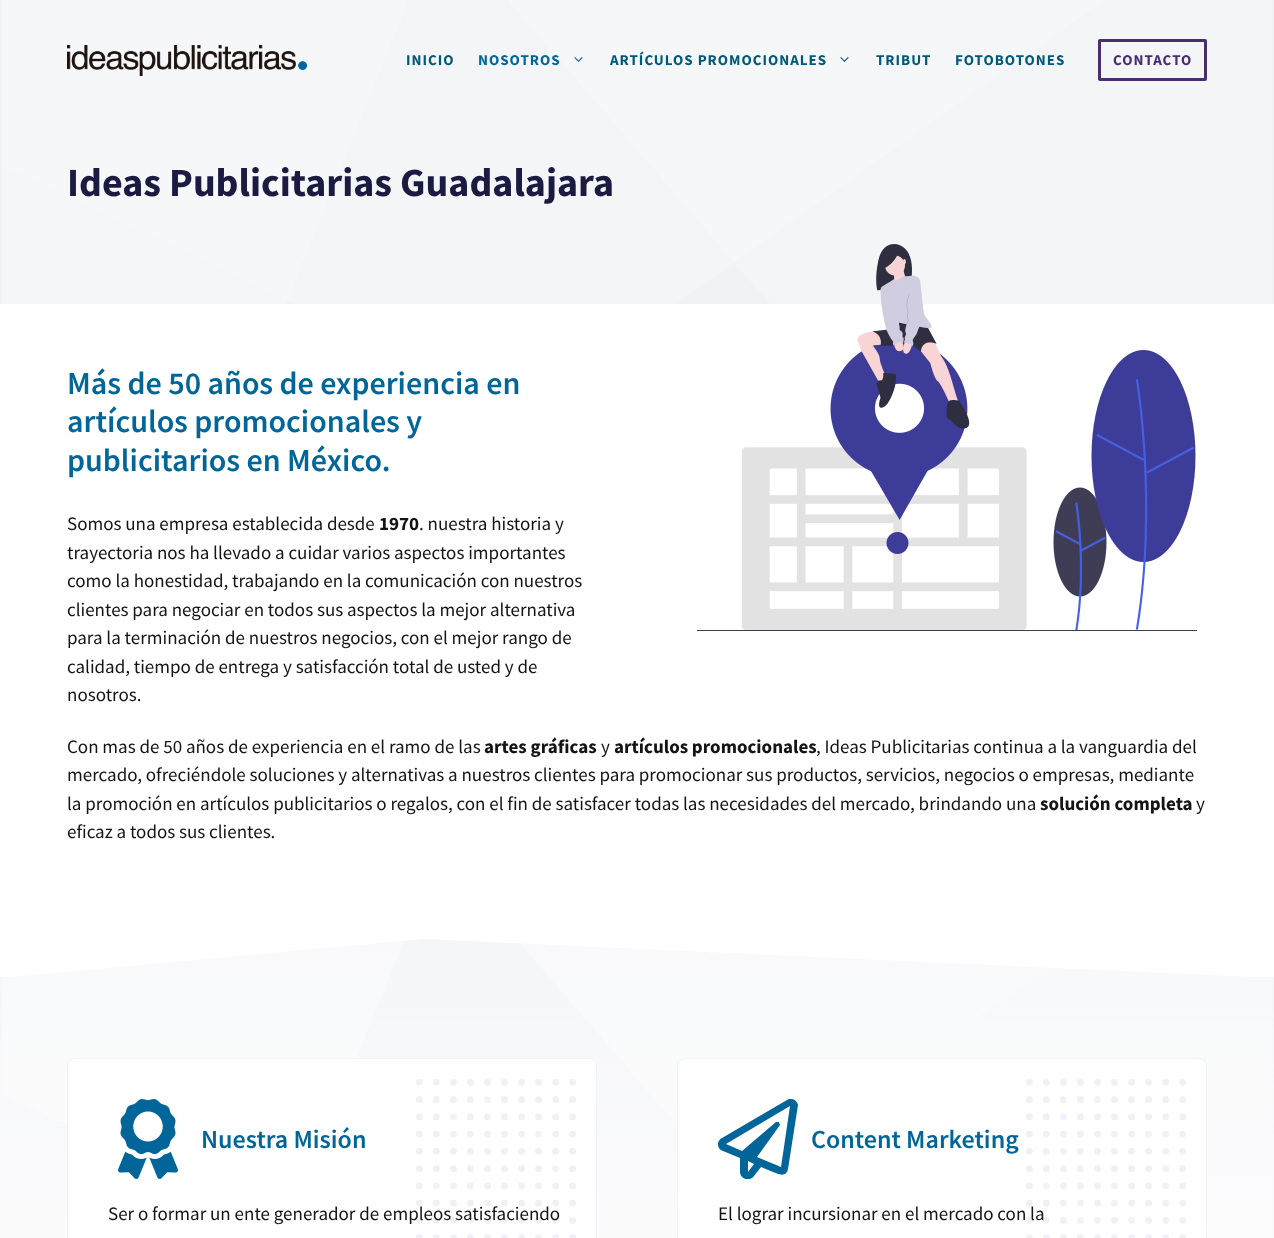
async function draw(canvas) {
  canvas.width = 1274;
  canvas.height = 1238;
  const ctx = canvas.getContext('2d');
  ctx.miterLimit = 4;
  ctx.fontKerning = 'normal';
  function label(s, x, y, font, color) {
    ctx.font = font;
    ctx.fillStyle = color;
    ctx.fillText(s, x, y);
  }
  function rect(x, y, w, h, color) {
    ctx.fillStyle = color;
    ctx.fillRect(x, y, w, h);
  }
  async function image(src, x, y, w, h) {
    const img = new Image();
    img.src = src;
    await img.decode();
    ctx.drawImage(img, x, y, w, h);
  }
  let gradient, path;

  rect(0, 0, 1274, 1238, '#fff');
  rect(0, 0, 1274, 304, '#f0f2f5');
  ctx.save();
  ctx.beginPath();
  ctx.rect(0, 0, 1274, 304);
  ctx.clip();
  ctx.fillStyle = '#f4f5f7';
  path = new Path2D('M409 0L288 300L492 395C513 405 537 402 556 389L734 263L507 0Z');
  ctx.fill(path);
  ctx.fillStyle = '#f5f6f8';
  path = new Path2D('M2 486L229 395C245 389 258 376 264 360L288 300L2 166Z');
  ctx.fill(path);
  ctx.restore();
  ctx.fillStyle = '#ffffff66';
  path = new Path2D('M2 0V166L288 300L409 0Z');
  ctx.fill(path);
  await image('assets/img1.png', 67, 45, 240, 31);
  ctx.letterSpacing = '1px';
  label('INICIO', 406, 65, 'bold 15px Source Sans Pro', '#00597a');
  ctx.save();
  ctx.beginPath();
  ctx.rect(0, 0, 1274, 304);
  ctx.clip();
  ctx.fillStyle = '#f4f5f7';
  path = new Path2D('M1105 0L734 263L809 348C817 358 827 364 839 368L1272 493V0Z');
  ctx.fill(path);
  ctx.restore();
  ctx.fillStyle = '#f6f7f9';
  path = new Path2D('M507 0L734 263L1105 0Z');
  ctx.fill(path);
  label('NOSOTROS', 478, 65, 'bold 15px Source Sans Pro', '#00669a');
  await image('assets/img2.png', 574, 57, 9, 5);
  label('ARTÍCULOS PROMOCIONALES', 610, 65, 'bold 15px Source Sans Pro', '#00597a');
  await image('assets/img3.png', 840, 57, 9, 5);
  label('TRIBUT', 876, 65, 'bold 15px Source Sans Pro', '#00597a');
  label('FOTOBOTONES', 955, 65, 'bold 15px Source Sans Pro', '#00597a');
  ctx.beginPath();
  ctx.roundRect(1099.5, 40.5, 106, 39, 0.5);
  ctx.strokeStyle = '#482d70';
  ctx.lineWidth = 3;
  ctx.stroke();
  label('CONTACTO', 1113, 65, 'bold 15px Source Sans Pro', '#482d70');
  ctx.letterSpacing = '0px';
  label('Ideas Publicitarias Guadalajara', 67, 196, 'bold 40px Source Sans Pro', '#1b1b42');
  label('Más de 50 años de experiencia en', 67, 394, '600 32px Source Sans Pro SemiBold', '#00669a');
  label('artículos promocionales y', 67, 432, '600 32px Source Sans Pro SemiBold', '#00669a');
  label('publicitarios en México.', 67, 471, '600 32px Source Sans Pro SemiBold', '#00669a');
  label('Somos una empresa establecida desde', 67, 530, '19px Source Sans Pro', '#141414');
  label('1970', 379, 530, 'bold 19px Source Sans Pro', '#141414');
  label('. nuestra historia y', 419, 530, '19px Source Sans Pro', '#141414');
  label('trayectoria nos ha llevado a cuidar varios aspectos importantes', 67, 559, '19px Source Sans Pro', '#141414');
  label('como la honestidad, trabajando en la comunicación con nuestros', 67, 587, '19px Source Sans Pro', '#141414');
  label('clientes para negociar en todos sus aspectos la mejor alternativa', 67, 616, '19px Source Sans Pro', '#141414');
  label('para la terminación de nuestros negocios, con el mejor rango de', 67, 644, '19px Source Sans Pro', '#141414');
  label('calidad, tiempo de entrega y satisfacción total de usted y de', 67, 673, '19px Source Sans Pro', '#141414');
  label('nosotros.', 67, 701, '19px Source Sans Pro', '#141414');
  await image('assets/img4.png', 697, 244, 500, 387);
  label('Con mas de 50 años de experiencia en el ramo de las', 67, 753, '19px Source Sans Pro', '#141414');
  label('artes gráficas', 484, 753, 'bold 19px Source Sans Pro', '#141414');
  label('y', 601, 753, '19px Source Sans Pro', '#141414');
  label('artículos promocionales', 614, 753, 'bold 19px Source Sans Pro', '#141414');
  label(', Ideas Publicitarias continua a la vanguardia del', 816, 753, '19px Source Sans Pro', '#141414');
  label('mercado, ofreciéndole soluciones y alternativas a nuestros clientes para promocionar sus productos, servicios, negocios o empresas, mediante', 67, 781, '19px Source Sans Pro', '#141414');
  label('la promoción en artículos publicitarios o regalos, con el fin de satisfacer todas las necesidades del mercado, brindando una', 67, 810, '19px Source Sans Pro', '#141414');
  label('solución completa', 1040, 810, 'bold 19px Source Sans Pro', '#141414');
  label('y', 1196, 810, '19px Source Sans Pro', '#141414');
  label('eficaz a todos sus clientes.', 67, 838, '19px Source Sans Pro', '#141414');
  gradient = ctx.createLinearGradient(637, 928, 637, 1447);
  gradient.addColorStop(0, '#f5f6f8');
  gradient.addColorStop(1, '#fff');
  ctx.fillStyle = gradient;
  ctx.fillRect(0, 939, 1274, 299);
  ctx.fillStyle = '#ffffff42';
  path = new Path2D('M1105 928L734 1191L809 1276C817 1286 827 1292 839 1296L1272 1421V928Z');
  ctx.fill(path);
  ctx.fillStyle = '#ffffff66';
  path = new Path2D('M507 928L734 1191L1105 928Z');
  ctx.fill(path);
  path = new Path2D('M2 928V1094L288 1228L409 928Z');
  ctx.fill(path);
  ctx.save();
  ctx.beginPath();
  ctx.rect(0, 928, 1274, 49);
  ctx.clip();
  ctx.fillStyle = '#fff';
  path = new Path2D('M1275 928H-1V978L424 939L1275 978Z');
  ctx.fill(path);
  ctx.restore();
  ctx.fillStyle = '#fff';
  ctx.beginPath();
  ctx.roundRect(67.5, 1058.5, 529, 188, 7.5);
  ctx.fill();
  ctx.strokeStyle = '#f0f2f5';
  ctx.lineWidth = 1;
  ctx.stroke();
  await image('assets/img5.png', 416, 1079, 160, 159);
  await image('assets/img6.png', 118, 1099, 60, 80);
  label('Nuestra Misión', 201, 1148, '600 26px Source Sans Pro SemiBold', '#00669a');
  label('Ser o formar un ente generador de empleos satisfaciendo', 108, 1220, '19px Source Sans Pro', '#141414');
  ctx.fillStyle = '#fff';
  ctx.beginPath();
  ctx.roundRect(677.5, 1058.5, 529, 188, 7.5);
  ctx.fill();
  ctx.stroke();
  ctx.save();
  ctx.beginPath();
  ctx.rect(718, 1099, 80, 80);
  ctx.clip();
  ctx.fillStyle = '#00669a';
  path = new Path2D('M787 1100L722 1138C716 1141 717 1149 723 1151L740 1158V1172C740 1179 750 1182 754 1176L761 1167L773 1172C778 1174 786 1178 788 1169L798 1105C797 1100 791 1097 787 1100ZM748 1172V1161L754 1164ZM781 1167L757 1157L780 1125L779 1122H776L742 1151L726 1144L790 1106Z');
  ctx.fill(path);
  ctx.restore();
  label('Content Marketing', 811, 1148, '600 26px Source Sans Pro SemiBold', '#00669a');
  await image('assets/img7.png', 1026, 1079, 160, 159);
  label('El lograr incursionar en el mercado con la', 718, 1220, '19px Source Sans Pro', '#141414');
}

draw(document.querySelector('canvas'));
